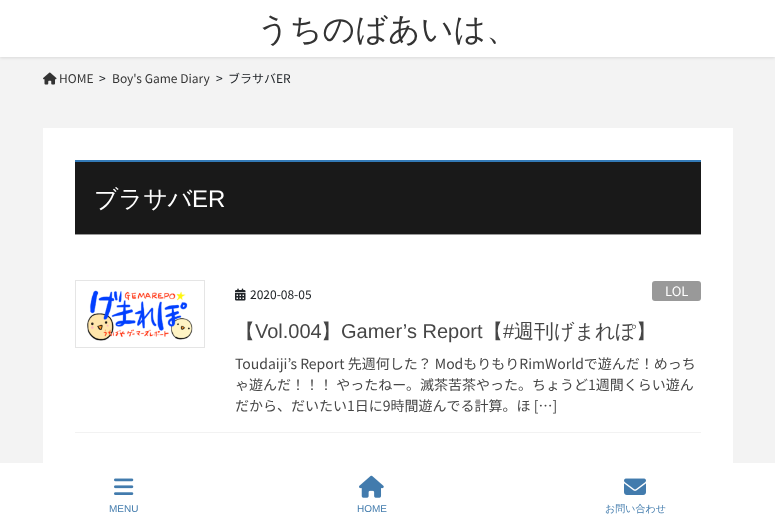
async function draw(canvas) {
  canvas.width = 775;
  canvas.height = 525;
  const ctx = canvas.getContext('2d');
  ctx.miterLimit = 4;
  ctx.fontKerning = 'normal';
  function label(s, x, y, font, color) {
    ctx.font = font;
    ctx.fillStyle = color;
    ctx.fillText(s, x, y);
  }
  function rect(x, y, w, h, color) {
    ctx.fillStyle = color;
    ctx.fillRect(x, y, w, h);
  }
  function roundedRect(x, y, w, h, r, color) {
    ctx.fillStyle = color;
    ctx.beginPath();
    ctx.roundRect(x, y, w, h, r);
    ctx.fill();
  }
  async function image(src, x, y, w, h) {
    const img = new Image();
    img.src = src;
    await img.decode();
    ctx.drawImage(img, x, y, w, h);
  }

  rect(0, 0, 775, 525, '#f3f3f3');
  ctx.fillStyle = '#0000001a';
  ctx.filter = 'blur(1.5px)';
  ctx.beginPath();
  ctx.rect(0, 1, 775, 57);
  ctx.fill();
  ctx.filter = 'none';
  rect(0, 0, 775, 57, '#fff');
  label('うちのばあいは、', 257, 40, '500 32px WenQuanYi Zen Hei', '#333');
  await image('assets/img1.png', 43, 72, 14, 13);
  label('HOME', 59, 83, '12px Noto Sans JP', '#333');
  label('>', 99, 83, '12px Noto Sans JP', '#212529');
  label('Boy\'s Game Diary', 112, 83, '12px Noto Sans JP', '#333');
  label('>', 216, 83, '12px Noto Sans JP', '#212529');
  label('ブラサバER', 228, 83, '12px Noto Sans JP', '#212529');
  rect(43, 128, 690, 335, '#fff');
  rect(75, 162, 626, 72, '#191919');
  rect(75, 160, 626, 2, '#337ab7');
  rect(75, 234, 626, 1, '#999');
  label('ブラサバ', 94, 207, '500 24px WenQuanYi Zen Hei', '#fff');
  label('ER', 192, 207, '24px Liberation Sans', '#fff');
  rect(75, 432, 626, 1, '#f2f2f2');
  ctx.strokeStyle = '#e5e5e5';
  ctx.strokeRect(75.5, 280.5, 129, 67);
  await image('assets/img2.png', 87, 290, 106, 51);
  await image('assets/img3.png', 235, 288, 11, 13);
  label('2020-08-05', 250, 299, '12px Noto Sans JP', '#212529');
  roundedRect(652, 281, 49, 20, 3, '#999');
  label('LOL', 665, 296, '13px Noto Sans JP', '#fff');
  label('【', 235, 338, '500 20px WenQuanYi Zen Hei', '#464646');
  label('Vol.004', 255, 338, '20px Liberation Sans', '#464646');
  label('】', 321, 338, '500 20px WenQuanYi Zen Hei', '#464646');
  label('Gamer’s Report', 341, 338, '20px Liberation Sans', '#464646');
  label('【', 483, 338, '500 20px WenQuanYi Zen Hei', '#464646');
  label('#', 503, 338, '20px Liberation Sans', '#464646');
  label('週刊げまれぽ】', 514, 338, '500 20px WenQuanYi Zen Hei', '#464646');
  label('Toudaiji’s Report 先週何した？ ModもりもりRimWorldで遊んだ！めっち', 235, 369, '14px Noto Sans JP', '#464646');
  label('ゃ遊んだ！！！ やったねー。滅茶苦茶やった。ちょうど1週間くらい遊ん', 235, 390, '14px Noto Sans JP', '#464646');
  label('だから、だいたい1日に9時間遊んでる計算。ほ […]', 235, 411, '14px Noto Sans JP', '#464646');
  rect(0, 463, 775, 62, '#fff');
  await image('assets/img4.png', 114, 478, 20, 17);
  label('MENU', 109, 512, '10px Liberation Sans', '#437cad');
  await image('assets/img5.png', 359, 475, 25, 23);
  label('HOME', 357, 512, '10px Liberation Sans', '#437cad');
  await image('assets/img6.png', 624, 478, 22, 17);
  label('お問い合わせ', 605, 512, '500 10px WenQuanYi Zen Hei', '#437cad');
}

draw(document.querySelector('canvas'));
